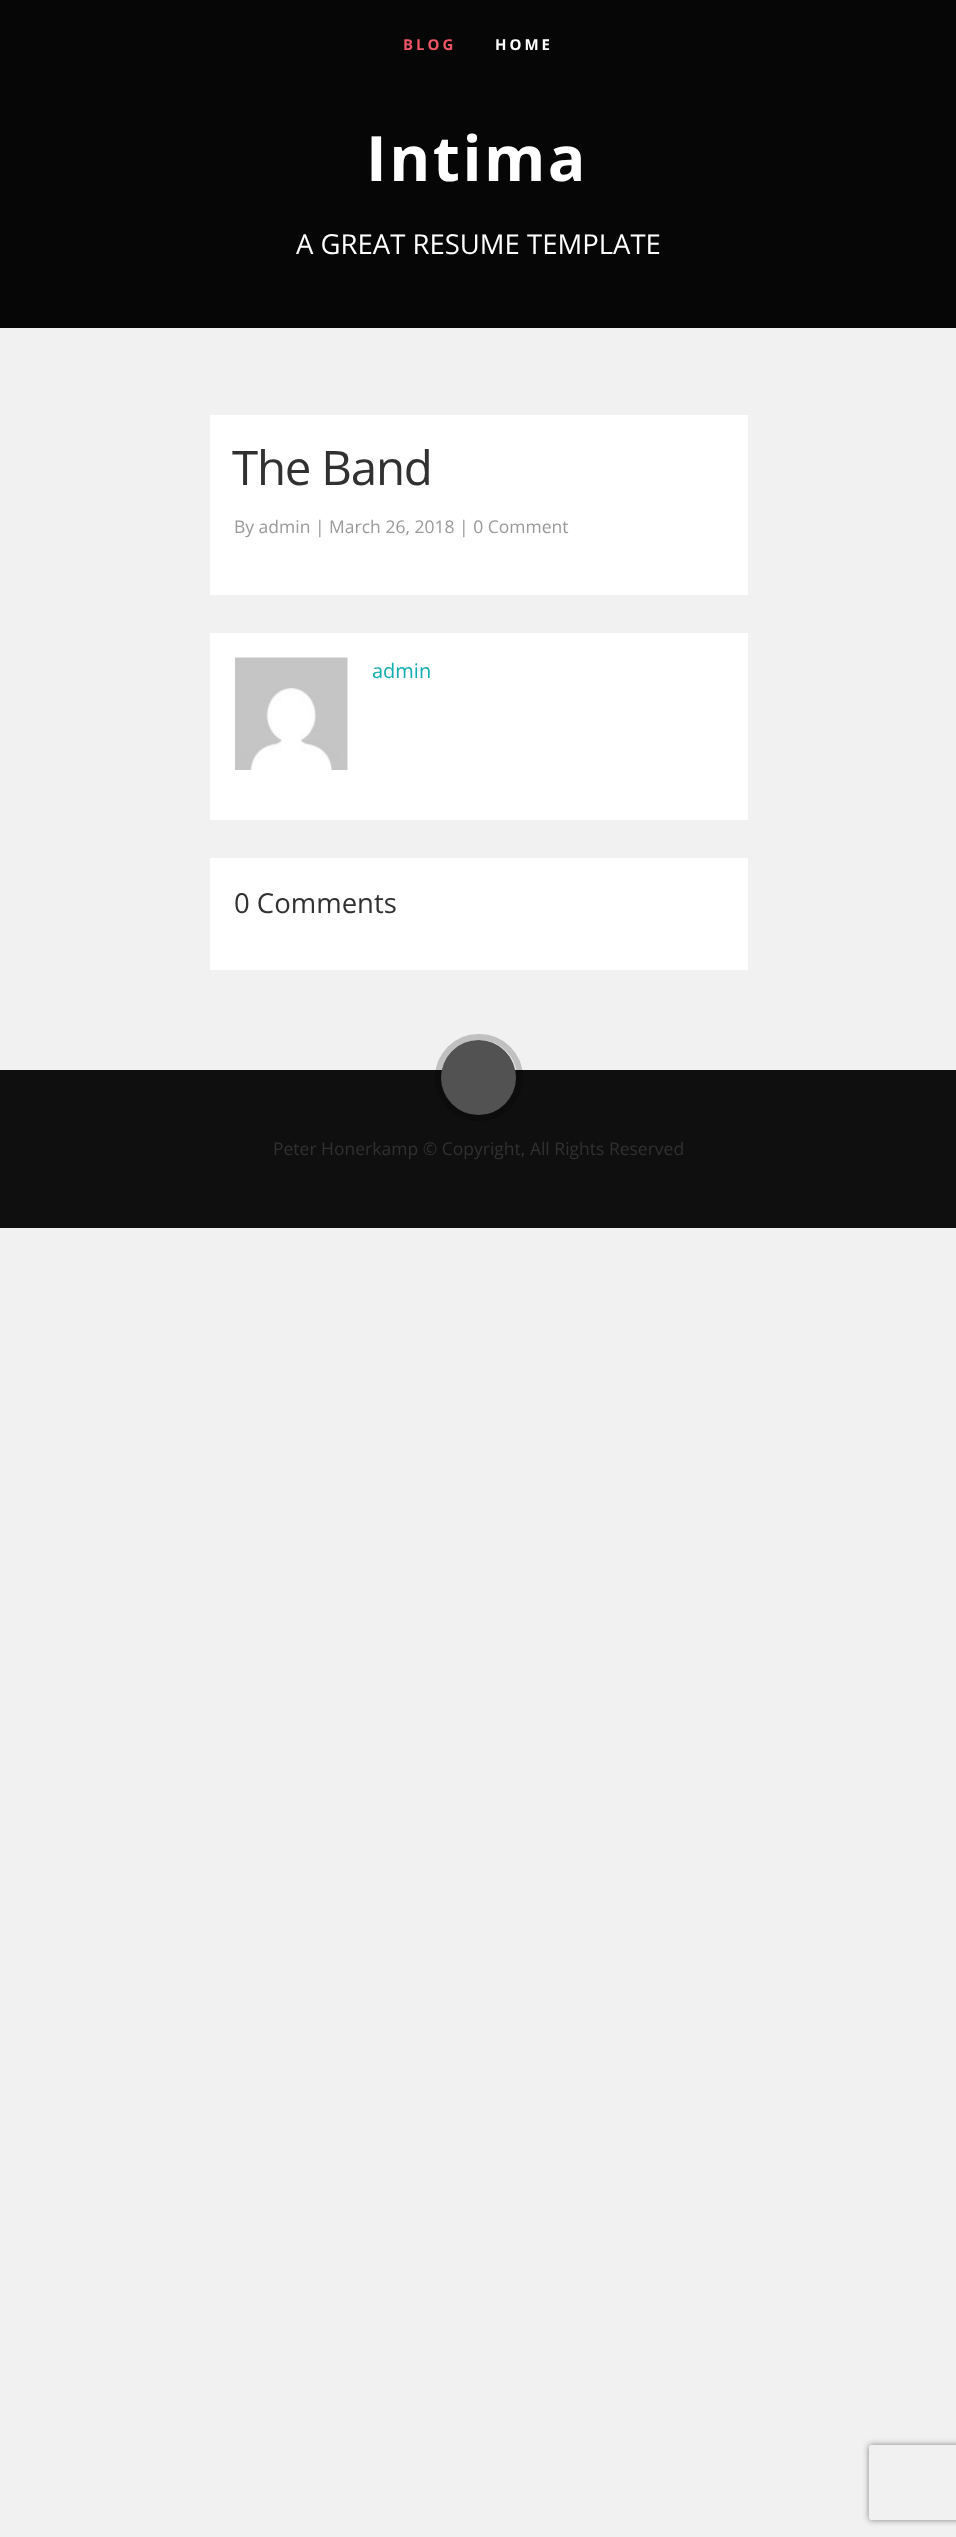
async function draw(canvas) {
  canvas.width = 956;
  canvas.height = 2537;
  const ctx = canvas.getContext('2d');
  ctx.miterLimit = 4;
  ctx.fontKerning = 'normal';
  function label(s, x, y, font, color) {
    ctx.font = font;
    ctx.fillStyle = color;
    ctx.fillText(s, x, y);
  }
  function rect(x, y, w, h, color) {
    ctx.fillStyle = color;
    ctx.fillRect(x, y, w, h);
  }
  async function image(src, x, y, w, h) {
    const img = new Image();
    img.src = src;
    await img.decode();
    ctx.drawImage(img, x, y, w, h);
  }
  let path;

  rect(0, 0, 956, 2537, '#f1f1f1');
  rect(0, 0, 956, 328, '#070606');
  ctx.letterSpacing = '3px';
  label('BLOG', 403, 50, 'bold 15px Open Sans', '#ed5565');
  label('HOME', 495, 50, 'bold 15px Open Sans', '#fff');
  ctx.letterSpacing = '2.5px';
  label('Intima', 366, 181, 'bold 62.5px Open Sans', '#fff');
  ctx.letterSpacing = '0px';
  label('A GREAT RESUME TEMPLATE', 296, 254, '27.5px Open Sans', '#fff');
  rect(210, 415, 538, 180, '#fff');
  ctx.letterSpacing = '-1.25px';
  label('The Band', 232, 485, '47.5px Open Sans', '#313131');
  ctx.letterSpacing = '0px';
  label('By admin | March 26, 2018 | 0 Comment', 234, 533, '17.5px Open Sans', '#999');
  rect(210, 633, 538, 187, '#fff');
  await image('assets/img1.png', 235, 657, 113, 113);
  label('admin', 372, 678, '20px Open Sans', '#11abb0');
  rect(210, 858, 538, 112, '#fff');
  label('0 Comments', 234, 913, '27.5px Open Sans', '#313131');
  rect(0, 1070, 956, 158, '#0f0f0f');
  ctx.beginPath();
  ctx.roundRect(438, 1037, 82, 81, 40.5);
  ctx.strokeStyle = '#00000033';
  ctx.lineWidth = 6;
  ctx.stroke();
  ctx.fillStyle = '#525252';
  ctx.beginPath();
  ctx.arc(478.5, 1077.5, 37.5, 0, 2 * Math.PI);
  ctx.fill();
  label('Peter Honerkamp © Copyright, All Rights Reserved', 273, 1155, '17.5px Open Sans', '#313131');
  ctx.save();
  path = new Path2D('M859 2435H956V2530H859ZM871.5 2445H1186.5C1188 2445 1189 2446 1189 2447.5V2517.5C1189 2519 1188 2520 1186.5 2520H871.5C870 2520 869 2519 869 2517.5V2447.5C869 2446 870 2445 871.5 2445Z');
  ctx.clip(path, 'evenodd');
  ctx.fillStyle = '#808080';
  ctx.filter = 'blur(3px)';
  ctx.beginPath();
  ctx.roundRect(869, 2445, 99, 75, 2.5);
  ctx.fill();
  ctx.filter = 'none';
  ctx.restore();
}

draw(document.querySelector('canvas'));
